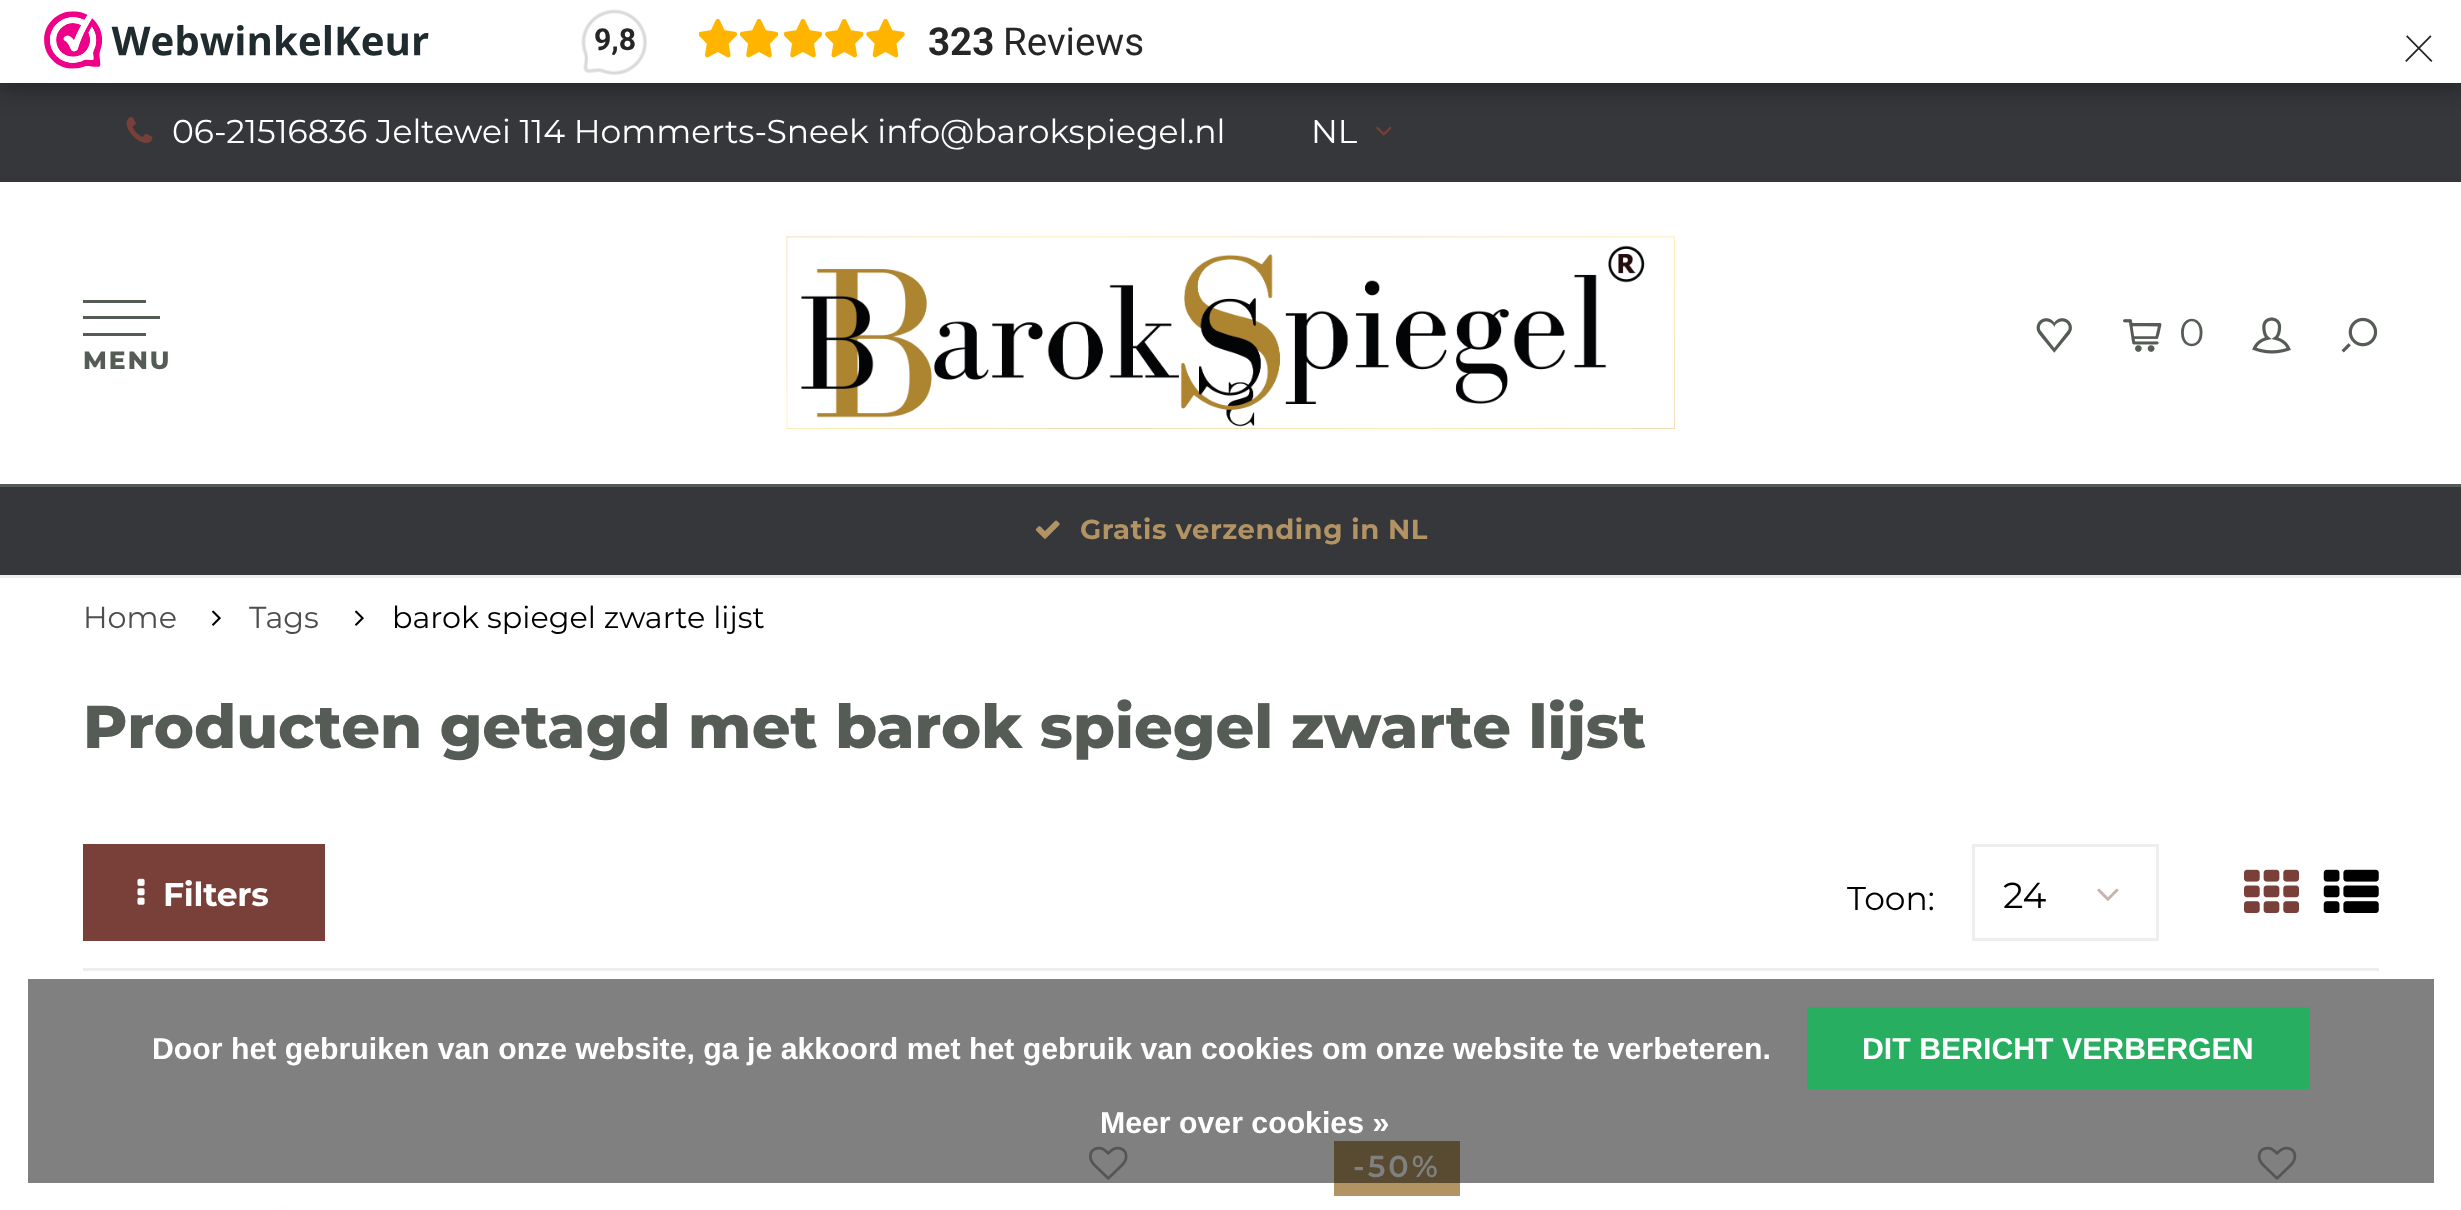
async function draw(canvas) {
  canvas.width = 2461;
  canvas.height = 1210;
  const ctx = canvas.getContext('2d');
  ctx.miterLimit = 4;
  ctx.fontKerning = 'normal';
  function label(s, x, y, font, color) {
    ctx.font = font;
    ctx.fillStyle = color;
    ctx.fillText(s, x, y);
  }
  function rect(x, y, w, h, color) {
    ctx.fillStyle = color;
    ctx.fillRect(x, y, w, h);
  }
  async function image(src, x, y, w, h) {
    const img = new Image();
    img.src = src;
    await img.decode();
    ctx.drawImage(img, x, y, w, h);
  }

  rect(0, 0, 2461, 1210, '#fff');
  rect(28, 979, 2406, 204, '#808080');
  rect(0, 83, 2461, 99, '#36373b');
  ctx.fillStyle = '#00000026';
  ctx.filter = 'blur(8px)';
  ctx.beginPath();
  ctx.rect(-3, -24, 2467, 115);
  ctx.fill();
  ctx.filter = 'none';
  await image('assets/img7.png', 126, 117, 27, 26);
  await image('assets/img8.png', 1376, 126, 16, 10);
  ctx.filter = 'blur(14px)';
  ctx.beginPath();
  ctx.rect(0, 6, 2461, 82);
  ctx.fill();
  ctx.filter = 'none';
  rect(0, 0, 2461, 83, '#fff');
  await image('assets/img1.png', 44, 11, 385, 58);
  await image('assets/img2.png', 581, 9, 66, 66);
  label('9,8', 594, 50, 'bold 30.25px Roboto', '#272626');
  await image('assets/img3.png', 699, 19, 38, 39);
  await image('assets/img4.png', 740, 19, 38, 39);
  await image('assets/img4.png', 784, 19, 38, 39);
  await image('assets/img5.png', 825, 19, 39, 39);
  await image('assets/img6.png', 866, 19, 39, 39);
  label('323', 928, 55, 'bold 38.5px Roboto', '#272626');
  label('Reviews', 1003, 55, '38.5px Roboto', '#272626');
  label('×', 2402, 62, '100 66px Roboto', '#272626');
  label('06-21516836 Jeltewei 114 Hommerts-Sneek info@barokspiegel.nl', 172, 143, '33px Montserrat', '#fff');
  label('NL', 1311, 143, '33px Montserrat', '#fff');
  rect(0, 484, 2461, 3, '#555c55');
  await image('assets/img9.png', 786, 236, 889, 193);
  await image('assets/img10.png', 2036, 318, 36, 35);
  await image('assets/img11.png', 2123, 319, 39, 33);
  label('0', 2179, 346, '38.5px Montserrat', '#555c55');
  await image('assets/img12.png', 2252, 317, 39, 37);
  await image('assets/img13.png', 2341, 317, 37, 36);
  rect(83, 300, 63, 3, '#555c55');
  rect(83, 316, 77, 3, '#555c55');
  rect(83, 333, 63, 3, '#555c55');
  ctx.letterSpacing = '2px';
  label('MENU', 83, 369, '800 25px Montserrat', '#555c55');
  rect(0, 487, 2461, 88, '#36373b');
  rect(0, 575, 2461, 3, '#eee');
  await image('assets/img14.png', 1035, 520, 25, 19);
  ctx.letterSpacing = '0.55px';
  label('Gratis verzending in NL', 1080, 539, 'bold 27.5px Montserrat', '#b29364');
  ctx.letterSpacing = '0px';
  label('Home', 83, 628, '30.25px Montserrat', '#4d4d4d');
  await image('assets/img15.png', 212, 610, 9, 16);
  label('Tags', 249, 628, '30.25px Montserrat', '#4d4d4d');
  await image('assets/img15.png', 355, 610, 9, 16);
  label('barok spiegel zwarte lijst', 392, 628, '30.25px Montserrat', '#000');
  label('Producten getagd met barok spiegel zwarte lijst', 83, 748, '800 60.5px Montserrat', '#555c55');
  rect(83, 968, 2296, 3, '#eee');
  rect(83, 844, 242, 97, '#794039');
  await image('assets/img16.png', 137, 878, 8, 27);
  ctx.letterSpacing = '-0.25px';
  label('Filters', 163, 906, 'bold 33px Montserrat', '#fff');
  ctx.letterSpacing = '0px';
  label('Toon:', 1847, 910, '33px Montserrat', '#000');
  ctx.strokeStyle = '#eee';
  ctx.lineWidth = 3;
  ctx.strokeRect(1973.5, 845.5, 184, 94);
  label('24', 2003, 908, '36px Montserrat', '#000');
  await image('assets/img17.png', 2097, 888, 22, 13);
  await image('assets/img18.png', 2244, 869, 55, 44);
  await image('assets/img19.png', 2323, 869, 56, 44);
  await image('assets/img20.png', 1089, 1146, 39, 34);
  rect(276, 1205, 13, 5, '#fefffa');
  rect(1334, 1183, 126, 13, '#b29364');
  rect(1334, 1141, 126, 42, '#594a32');
  ctx.letterSpacing = '3px';
  label('-50%', 1353, 1177, '600 30.25px Montserrat', '#808080');
  await image('assets/img21.png', 2257, 1146, 40, 34);
  ctx.letterSpacing = '0px';
  label('Door het gebruiken van onze website, ga je akkoord met het gebruik van cookies om onze website te verbeteren.', 152, 1059, 'bold 30.25px Liberation Sans', '#fff');
  rect(1807, 1007, 503, 82, '#27ae60');
  label('DIT BERICHT VERBERGEN', 1862, 1059, 'bold 30.25px Liberation Sans', '#fff');
  label('Meer over cookies »', 1100, 1133, 'bold 30.25px Liberation Sans', '#fff');
}

draw(document.querySelector('canvas'));
